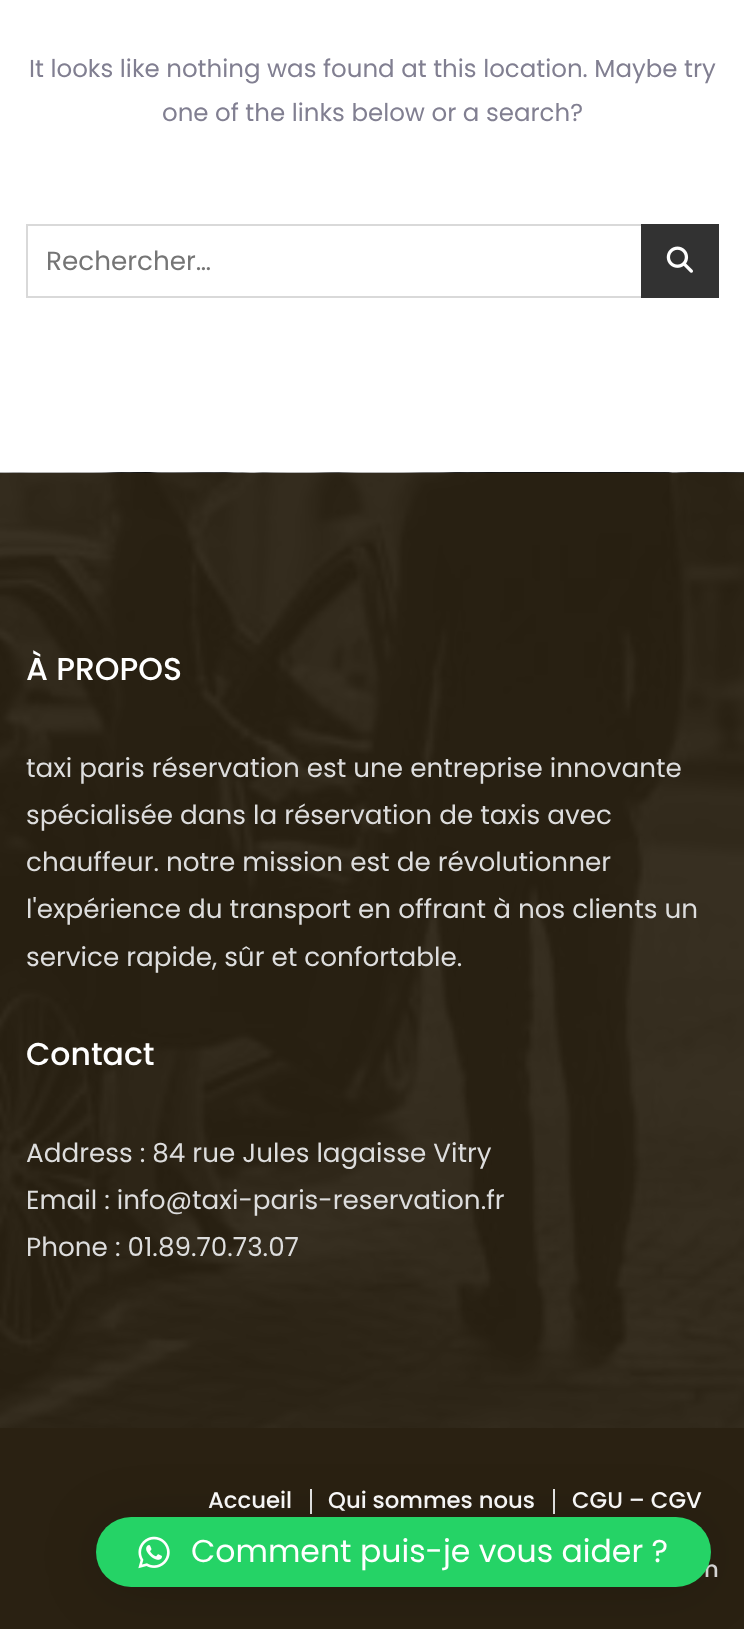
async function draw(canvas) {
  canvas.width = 744;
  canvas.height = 1629;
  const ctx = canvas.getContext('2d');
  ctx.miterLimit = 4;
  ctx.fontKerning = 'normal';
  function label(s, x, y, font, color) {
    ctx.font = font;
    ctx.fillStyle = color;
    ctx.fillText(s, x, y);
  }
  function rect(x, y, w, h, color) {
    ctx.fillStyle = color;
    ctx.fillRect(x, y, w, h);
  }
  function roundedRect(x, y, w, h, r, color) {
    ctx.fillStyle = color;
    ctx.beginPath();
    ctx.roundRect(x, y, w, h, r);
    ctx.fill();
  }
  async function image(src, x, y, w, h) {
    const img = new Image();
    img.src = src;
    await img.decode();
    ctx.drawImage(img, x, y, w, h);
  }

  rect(0, 0, 744, 1629, '#fff');
  label('It looks like nothing was found at this location. Maybe try', 29, 77, '24.5px Poppins', '#817f91');
  label('one of the links below or a search?', 162, 121, '24.5px Poppins', '#817f91');
  ctx.strokeStyle = '#d9d9d9';
  ctx.lineWidth = 2;
  ctx.strokeRect(27, 225, 691, 72);
  label('Rechercher…', 46, 270, '26.25px Poppins', '#757575');
  rect(641, 224, 78, 74, '#323232');
  await image('assets/img1.png', 666, 246, 27, 27);
  await image('assets/img2.png', 0, 472, 744, 956);
  rect(0, 473, 744, 955, '#2a2112ed');
  label('À PROPOS', 26, 680, '500 31.5px Poppins', '#fff');
  label('taxi paris réservation est une entreprise innovante', 26, 777, '26.25px Poppins', '#ddd');
  label('spécialisée dans la réservation de taxis avec', 26, 824, '26.25px Poppins', '#ddd');
  label('chauffeur. notre mission est de révolutionner', 26, 871, '26.25px Poppins', '#ddd');
  label('l\'expérience du transport en offrant à nos clients un', 26, 918, '26.25px Poppins', '#ddd');
  label('service rapide, sûr et confortable.', 26, 966, '26.25px Poppins', '#ddd');
  label('Contact', 26, 1065, '500 31.5px Poppins', '#fff');
  label('Address : 84 rue Jules lagaisse Vitry', 26, 1162, '26.25px Poppins', '#ddd');
  label('Email : info@taxi-paris-reservation.fr', 26, 1209, '26.25px Poppins', '#ddd');
  label('Phone : 01.89.70.73.07', 26, 1256, '26.25px Poppins', '#ddd');
  rect(0, 1428, 744, 201, '#2a2112');
  label('Accueil', 208, 1508, '500 22.75px Poppins', '#fff');
  rect(310, 1489, 2, 25, '#e6e6e6');
  label('Qui sommes nous', 328, 1508, '500 22.75px Poppins', '#fff');
  rect(553, 1489, 2, 25, '#e6e6e6');
  label('CGU – CGV', 572, 1508, '500 22.75px Poppins', '#fff');
  label('n', 704, 1577, '500 22.75px Poppins', '#ddd');
  ctx.fillStyle = '#00000029';
  ctx.filter = 'blur(28px)';
  ctx.beginPath();
  ctx.roundRect(96, 1521, 615, 70, 35);
  ctx.fill();
  ctx.filter = 'none';
  roundedRect(96, 1517, 615, 70, 35, '#25d366');
  await image('assets/img3.png', 138, 1536, 32, 33);
  label('Comment puis-je vous aider ?', 191, 1562, '31.5px Poppins', '#fff');
}

draw(document.querySelector('canvas'));
